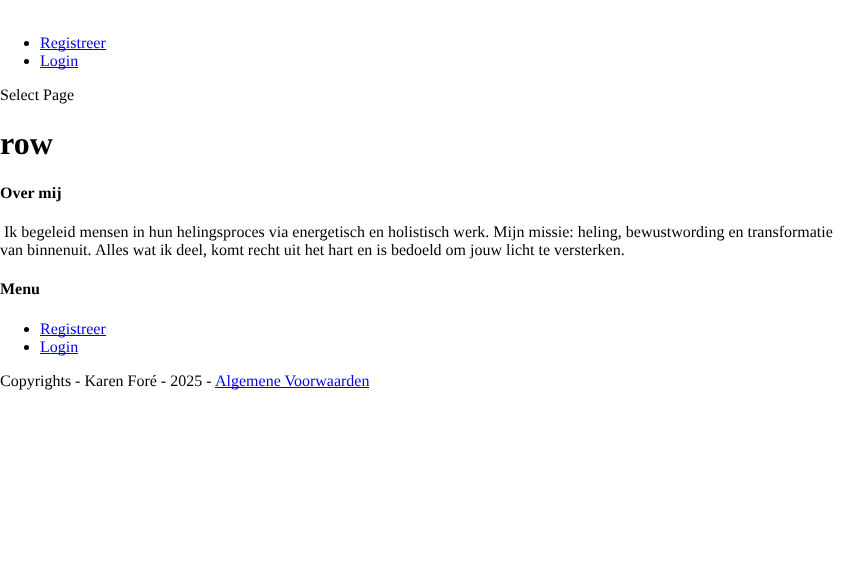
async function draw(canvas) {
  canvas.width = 851;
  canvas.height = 583;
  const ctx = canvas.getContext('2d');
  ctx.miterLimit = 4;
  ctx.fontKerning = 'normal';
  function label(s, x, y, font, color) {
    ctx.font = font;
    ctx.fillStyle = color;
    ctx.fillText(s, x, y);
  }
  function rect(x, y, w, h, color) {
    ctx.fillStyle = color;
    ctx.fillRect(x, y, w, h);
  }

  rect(0, 0, 851, 583, '#fff');
  ctx.fillStyle = '#000';
  ctx.beginPath();
  ctx.arc(26.5, 43.5, 2.5, 0, 2 * Math.PI);
  ctx.fill();
  rect(40, 49, 66, 1, '#00e');
  label('Registreer', 40, 48, '16px Liberation Serif', '#00e');
  ctx.fillStyle = '#000';
  ctx.beginPath();
  ctx.arc(26.5, 61.5, 2.5, 0, 2 * Math.PI);
  ctx.fill();
  rect(40, 67, 38, 1, '#00e');
  label('Login', 40, 66, '16px Liberation Serif', '#00e');
  label('Select Page', 0, 100, '16px Liberation Serif', '#000');
  label('row', 0, 154, 'bold 32px Liberation Serif', '#000');
  label('Over mij', 0, 198, 'bold 16px Liberation Serif', '#000');
  label('Ik begeleid mensen in hun helingsproces via energetisch en holistisch werk. Mijn missie: heling, bewustwording en transformatie', 4, 237, '16px Liberation Serif', '#000');
  label('van binnenuit.', 0, 255, '16px Liberation Serif', '#000');
  label('Alles wat ik deel, komt recht uit het hart en is bedoeld om jouw licht te versterken.', 95, 255, '16px Liberation Serif', '#000');
  label('Menu', 0, 294, 'bold 16px Liberation Serif', '#000');
  ctx.beginPath();
  ctx.arc(26.5, 329.5, 2.5, 0, 2 * Math.PI);
  ctx.fill();
  rect(40, 335, 66, 1, '#00e');
  label('Registreer', 40, 334, '16px Liberation Serif', '#00e');
  ctx.fillStyle = '#000';
  ctx.beginPath();
  ctx.arc(26.5, 347.5, 2.5, 0, 2 * Math.PI);
  ctx.fill();
  rect(40, 353, 38, 1, '#00e');
  label('Login', 40, 352, '16px Liberation Serif', '#00e');
  label('Copyrights - Karen Foré - 2025 -', 0, 386, '16px Liberation Serif', '#000');
  rect(215, 387, 154, 1, '#00e');
  label('Algemene Voorwaarden', 215, 386, '16px Liberation Serif', '#00e');
}

draw(document.querySelector('canvas'));
